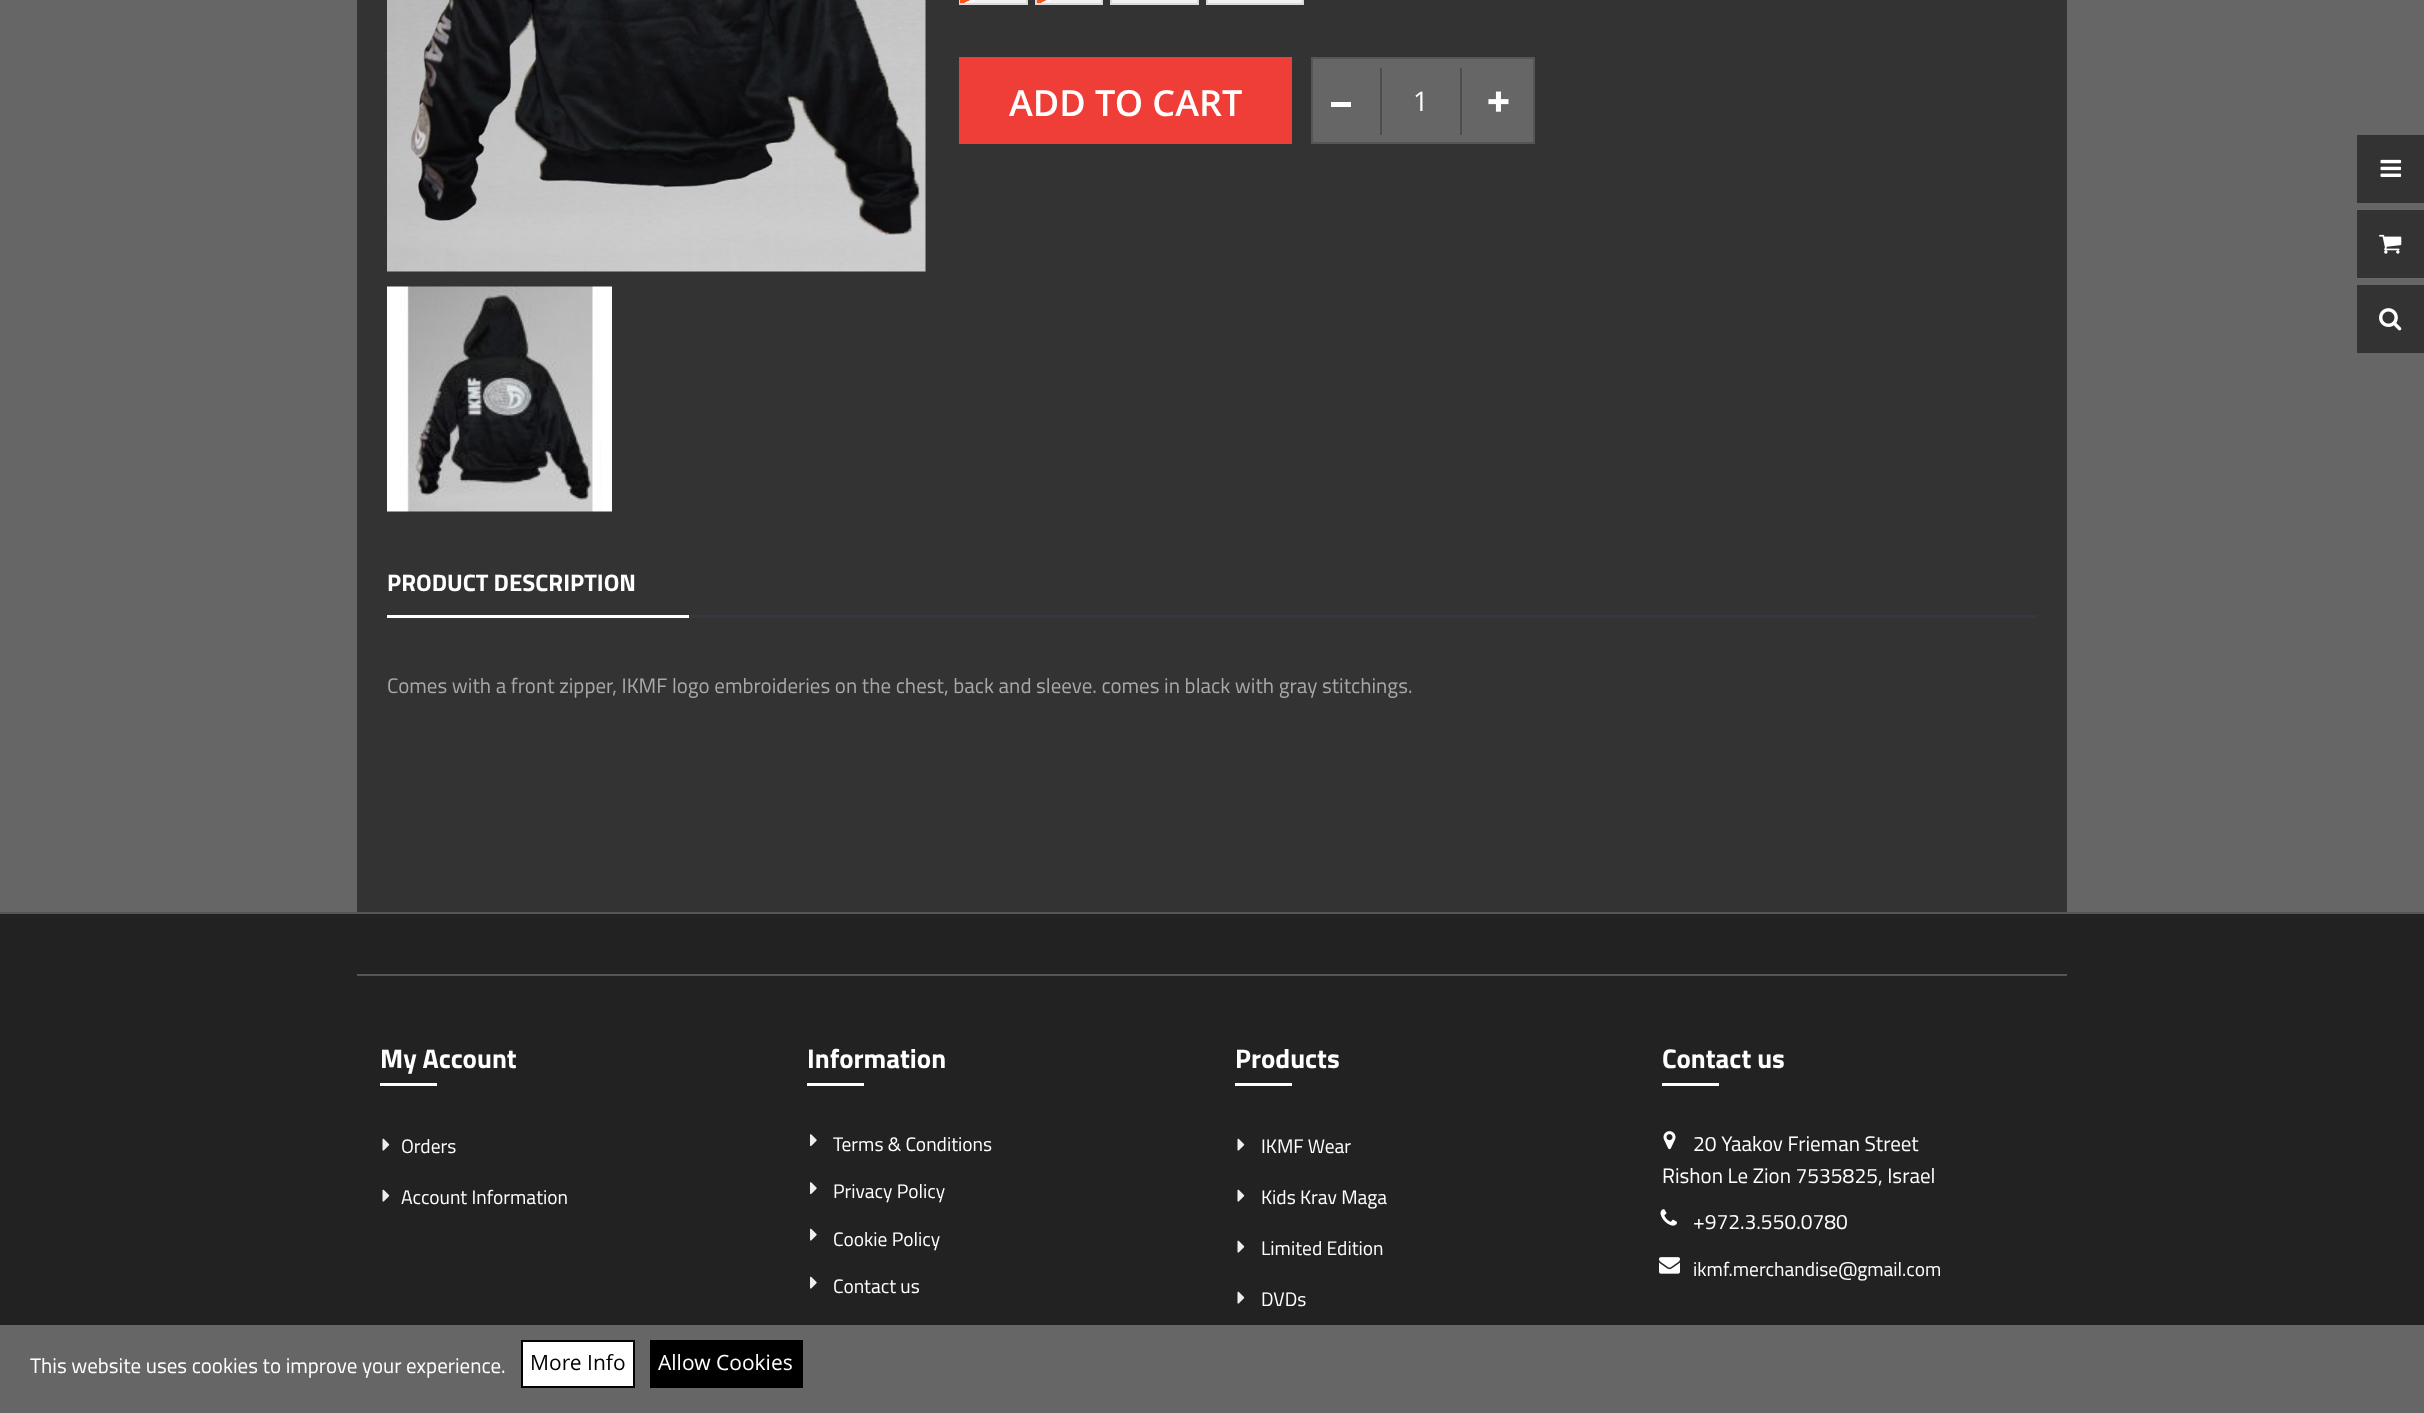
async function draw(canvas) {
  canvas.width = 2424;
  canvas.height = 1413;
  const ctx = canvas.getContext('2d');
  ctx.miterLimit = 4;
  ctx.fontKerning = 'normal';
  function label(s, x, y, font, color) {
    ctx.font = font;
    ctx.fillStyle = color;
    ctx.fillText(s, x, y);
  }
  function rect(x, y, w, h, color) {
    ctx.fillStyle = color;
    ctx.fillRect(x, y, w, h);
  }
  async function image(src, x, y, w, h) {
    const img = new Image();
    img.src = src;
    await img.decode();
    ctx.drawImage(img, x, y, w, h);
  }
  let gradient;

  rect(0, 0, 2424, 1413, '#666');
  rect(357, 0, 1710, 912, '#333');
  await image('assets/img1.png', 387, 0, 539, 272);
  await image('assets/img2.png', 387, 286, 225, 226);
  rect(970, 0, 58, 3, '#f2f2f2');
  ctx.strokeStyle = '#dadada';
  ctx.lineWidth = 2;
  ctx.strokeRect(960, -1, 67, 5);
  gradient = ctx.createLinearGradient(1006, 13, 980, -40);
  gradient.addColorStop(0, '#ffffff00');
  gradient.addColorStop(0.42, '#ffffff00');
  gradient.addColorStop(0.43, '#fff');
  gradient.addColorStop(0.46, '#fff');
  gradient.addColorStop(0.47, '#ff5216');
  gradient.addColorStop(0.53, '#ff5216');
  gradient.addColorStop(0.54, '#fff');
  gradient.addColorStop(0.57, '#fff');
  gradient.addColorStop(0.58, '#ffffff00');
  gradient.addColorStop(1, '#ffffff00');
  ctx.fillStyle = gradient;
  ctx.fillRect(960, 0, 15, 3);
  ctx.strokeRect(1036, -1, 66, 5);
  gradient = ctx.createLinearGradient(1082, 13, 1055, -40);
  gradient.addColorStop(0, '#f2f2f2');
  gradient.addColorStop(0.42, '#f2f2f2');
  gradient.addColorStop(0.43, '#fff');
  gradient.addColorStop(0.46, '#fff');
  gradient.addColorStop(0.47, '#ff5216');
  gradient.addColorStop(0.53, '#ff5216');
  gradient.addColorStop(0.54, '#fff');
  gradient.addColorStop(0.57, '#fff');
  gradient.addColorStop(0.58, '#f2f2f2');
  gradient.addColorStop(1, '#f2f2f2');
  ctx.fillStyle = gradient;
  ctx.fillRect(1037, 0, 64, 3);
  ctx.fillStyle = '#f2f2f2';
  ctx.beginPath();
  ctx.rect(1111, -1, 87, 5);
  ctx.fill();
  ctx.stroke();
  ctx.beginPath();
  ctx.rect(1207, -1, 96, 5);
  ctx.fill();
  ctx.stroke();
  rect(959, 57, 333, 87, '#ef3e37');
  label('ADD TO CART', 1009, 116, '600 36px Open Sans', '#fff');
  ctx.fillStyle = '#666';
  ctx.beginPath();
  ctx.rect(1312, 58, 222, 85);
  ctx.fill();
  ctx.strokeStyle = '#555';
  ctx.stroke();
  rect(1331, 102, 20, 5, '#fff');
  await image('assets/img3.png', 1488, 91, 21, 21);
  rect(1460, 68, 2, 67, '#4b4d55');
  rect(1380, 68, 2, 67, '#4b4d55');
  label('1', 1413, 111, '27px Open Sans', '#fff');
  rect(387, 615, 302, 3, '#fff');
  label('PRODUCT DESCRIPTION', 387, 591, 'bold 24px Titillium Web', '#fff');
  rect(689, 615, 1348, 3, '#353840');
  label('Comes with a front zipper, IKMF logo embroideries on the chest, back and sleeve. comes in black with gray stitchings.', 387, 693, '21px Titillium Web', '#a8a8a8');
  rect(2357, 135, 67, 68, '#333');
  await image('assets/img4.png', 2380, 159, 22, 18);
  rect(2357, 210, 67, 68, '#333');
  await image('assets/img5.png', 2379, 234, 23, 20);
  rect(2357, 285, 67, 68, '#333');
  await image('assets/img6.png', 2379, 308, 23, 23);
  rect(0, 914, 2424, 411, '#222');
  rect(0, 912, 2424, 2, '#555');
  rect(357, 974, 1710, 2, '#555');
  label('My Account', 380, 1068, 'bold 27px Titillium Web', '#fff');
  rect(380, 1083, 57, 3, '#fff');
  await image('assets/img7.png', 382, 1138, 8, 13);
  label('Orders', 401, 1153, '19.5px Titillium Web', '#fff');
  await image('assets/img7.png', 382, 1189, 8, 13);
  label('Account Information', 401, 1204, '19.5px Titillium Web', '#fff');
  label('Information', 807, 1068, 'bold 27px Titillium Web', '#fff');
  rect(807, 1083, 57, 3, '#fff');
  await image('assets/img8.png', 810, 1134, 7, 13);
  label('Terms & Conditions', 833, 1151, '19.5px Titillium Web', '#fff');
  await image('assets/img8.png', 810, 1182, 7, 13);
  label('Privacy Policy', 833, 1198, '19.5px Titillium Web', '#fff');
  await image('assets/img9.png', 810, 1228, 7, 13);
  label('Cookie Policy', 833, 1246, '19.5px Titillium Web', '#fff');
  await image('assets/img9.png', 810, 1276, 7, 13);
  label('Contact us', 833, 1293, '19.5px Titillium Web', '#fff');
  label('Products', 1235, 1068, 'bold 27px Titillium Web', '#fff');
  rect(1235, 1083, 57, 3, '#fff');
  await image('assets/img7.png', 1237, 1138, 8, 13);
  label('IKMF Wear', 1261, 1153, '19.5px Titillium Web', '#fff');
  await image('assets/img7.png', 1237, 1189, 8, 13);
  label('Kids Krav Maga', 1261, 1204, '19.5px Titillium Web', '#fff');
  await image('assets/img7.png', 1237, 1240, 8, 13);
  label('Limited Edition', 1261, 1255, '19.5px Titillium Web', '#fff');
  await image('assets/img7.png', 1237, 1291, 8, 13);
  label('DVDs', 1261, 1306, '19.5px Titillium Web', '#fff');
  label('Contact us', 1662, 1068, 'bold 27px Titillium Web', '#fff');
  rect(1662, 1083, 57, 3, '#fff');
  await image('assets/img10.png', 1663, 1131, 13, 19);
  label('20 Yaakov Frieman Street', 1693, 1151, '21px Titillium Web', '#fff');
  label('Rishon Le Zion 7535825, Israel', 1662, 1183, '21px Titillium Web', '#fff');
  await image('assets/img11.png', 1660, 1209, 17, 17);
  label('+972.3.550.0780', 1693, 1229, '21px Titillium Web', '#fff');
  await image('assets/img12.png', 1659, 1257, 21, 17);
  label('ikmf.merchandise@gmail.com', 1693, 1276, '19.5px Titillium Web', '#fff');
  label('This website uses cookies to improve your experience.', 30, 1373, '21px Titillium Web', '#fff');
  ctx.beginPath();
  ctx.rect(522, 1341, 112, 46);
  ctx.fill();
  ctx.strokeStyle = '#000';
  ctx.stroke();
  label('More Info', 530, 1370, '21px Open Sans', '#000');
  rect(650, 1340, 153, 48, '#000');
  label('Allow Cookies', 658, 1370, '21px Open Sans', '#fff');
}

draw(document.querySelector('canvas'));
